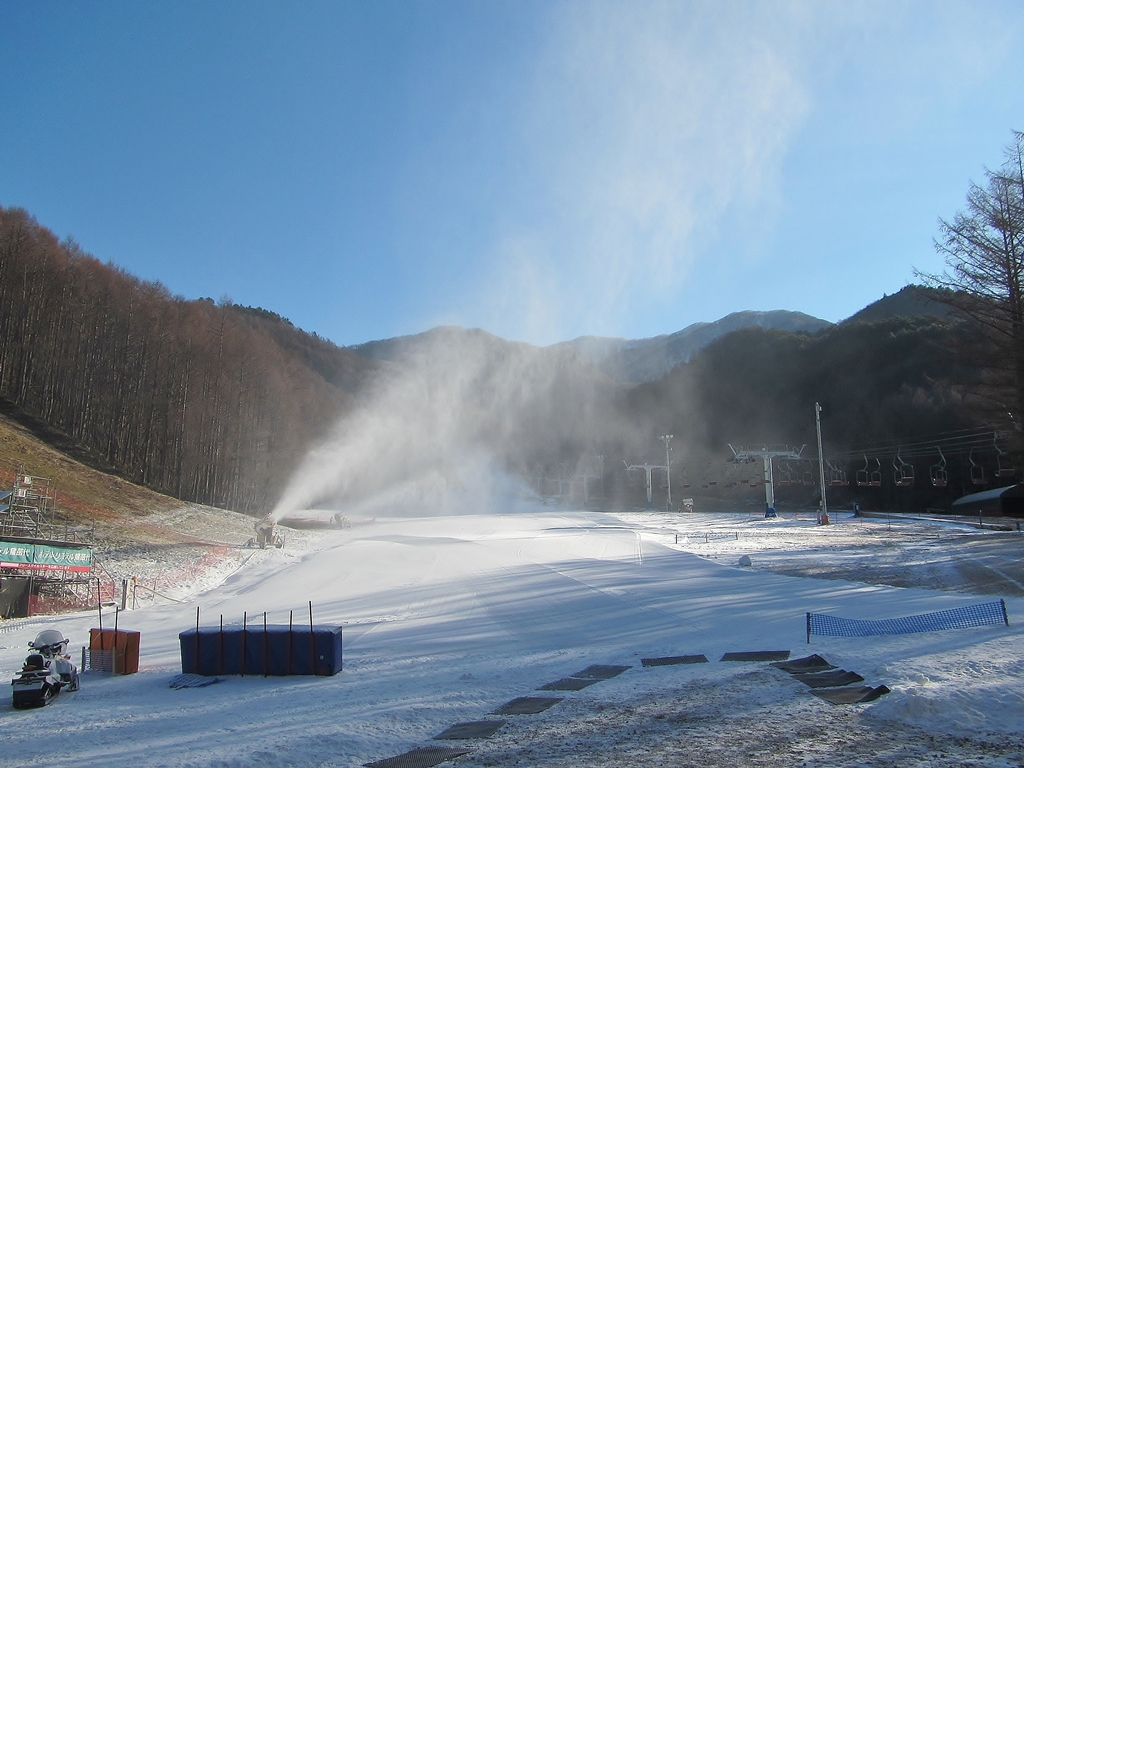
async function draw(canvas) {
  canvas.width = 1124;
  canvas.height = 1749;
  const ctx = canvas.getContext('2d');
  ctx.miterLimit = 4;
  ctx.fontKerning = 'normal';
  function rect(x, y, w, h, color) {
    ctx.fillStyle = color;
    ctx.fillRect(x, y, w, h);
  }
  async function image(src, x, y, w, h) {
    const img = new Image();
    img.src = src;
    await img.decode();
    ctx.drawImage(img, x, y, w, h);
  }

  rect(0, 0, 1124, 1749, '#fff');
  await image('assets/img1.png', 0, 0, 1024, 768);
}

draw(document.querySelector('canvas'));
